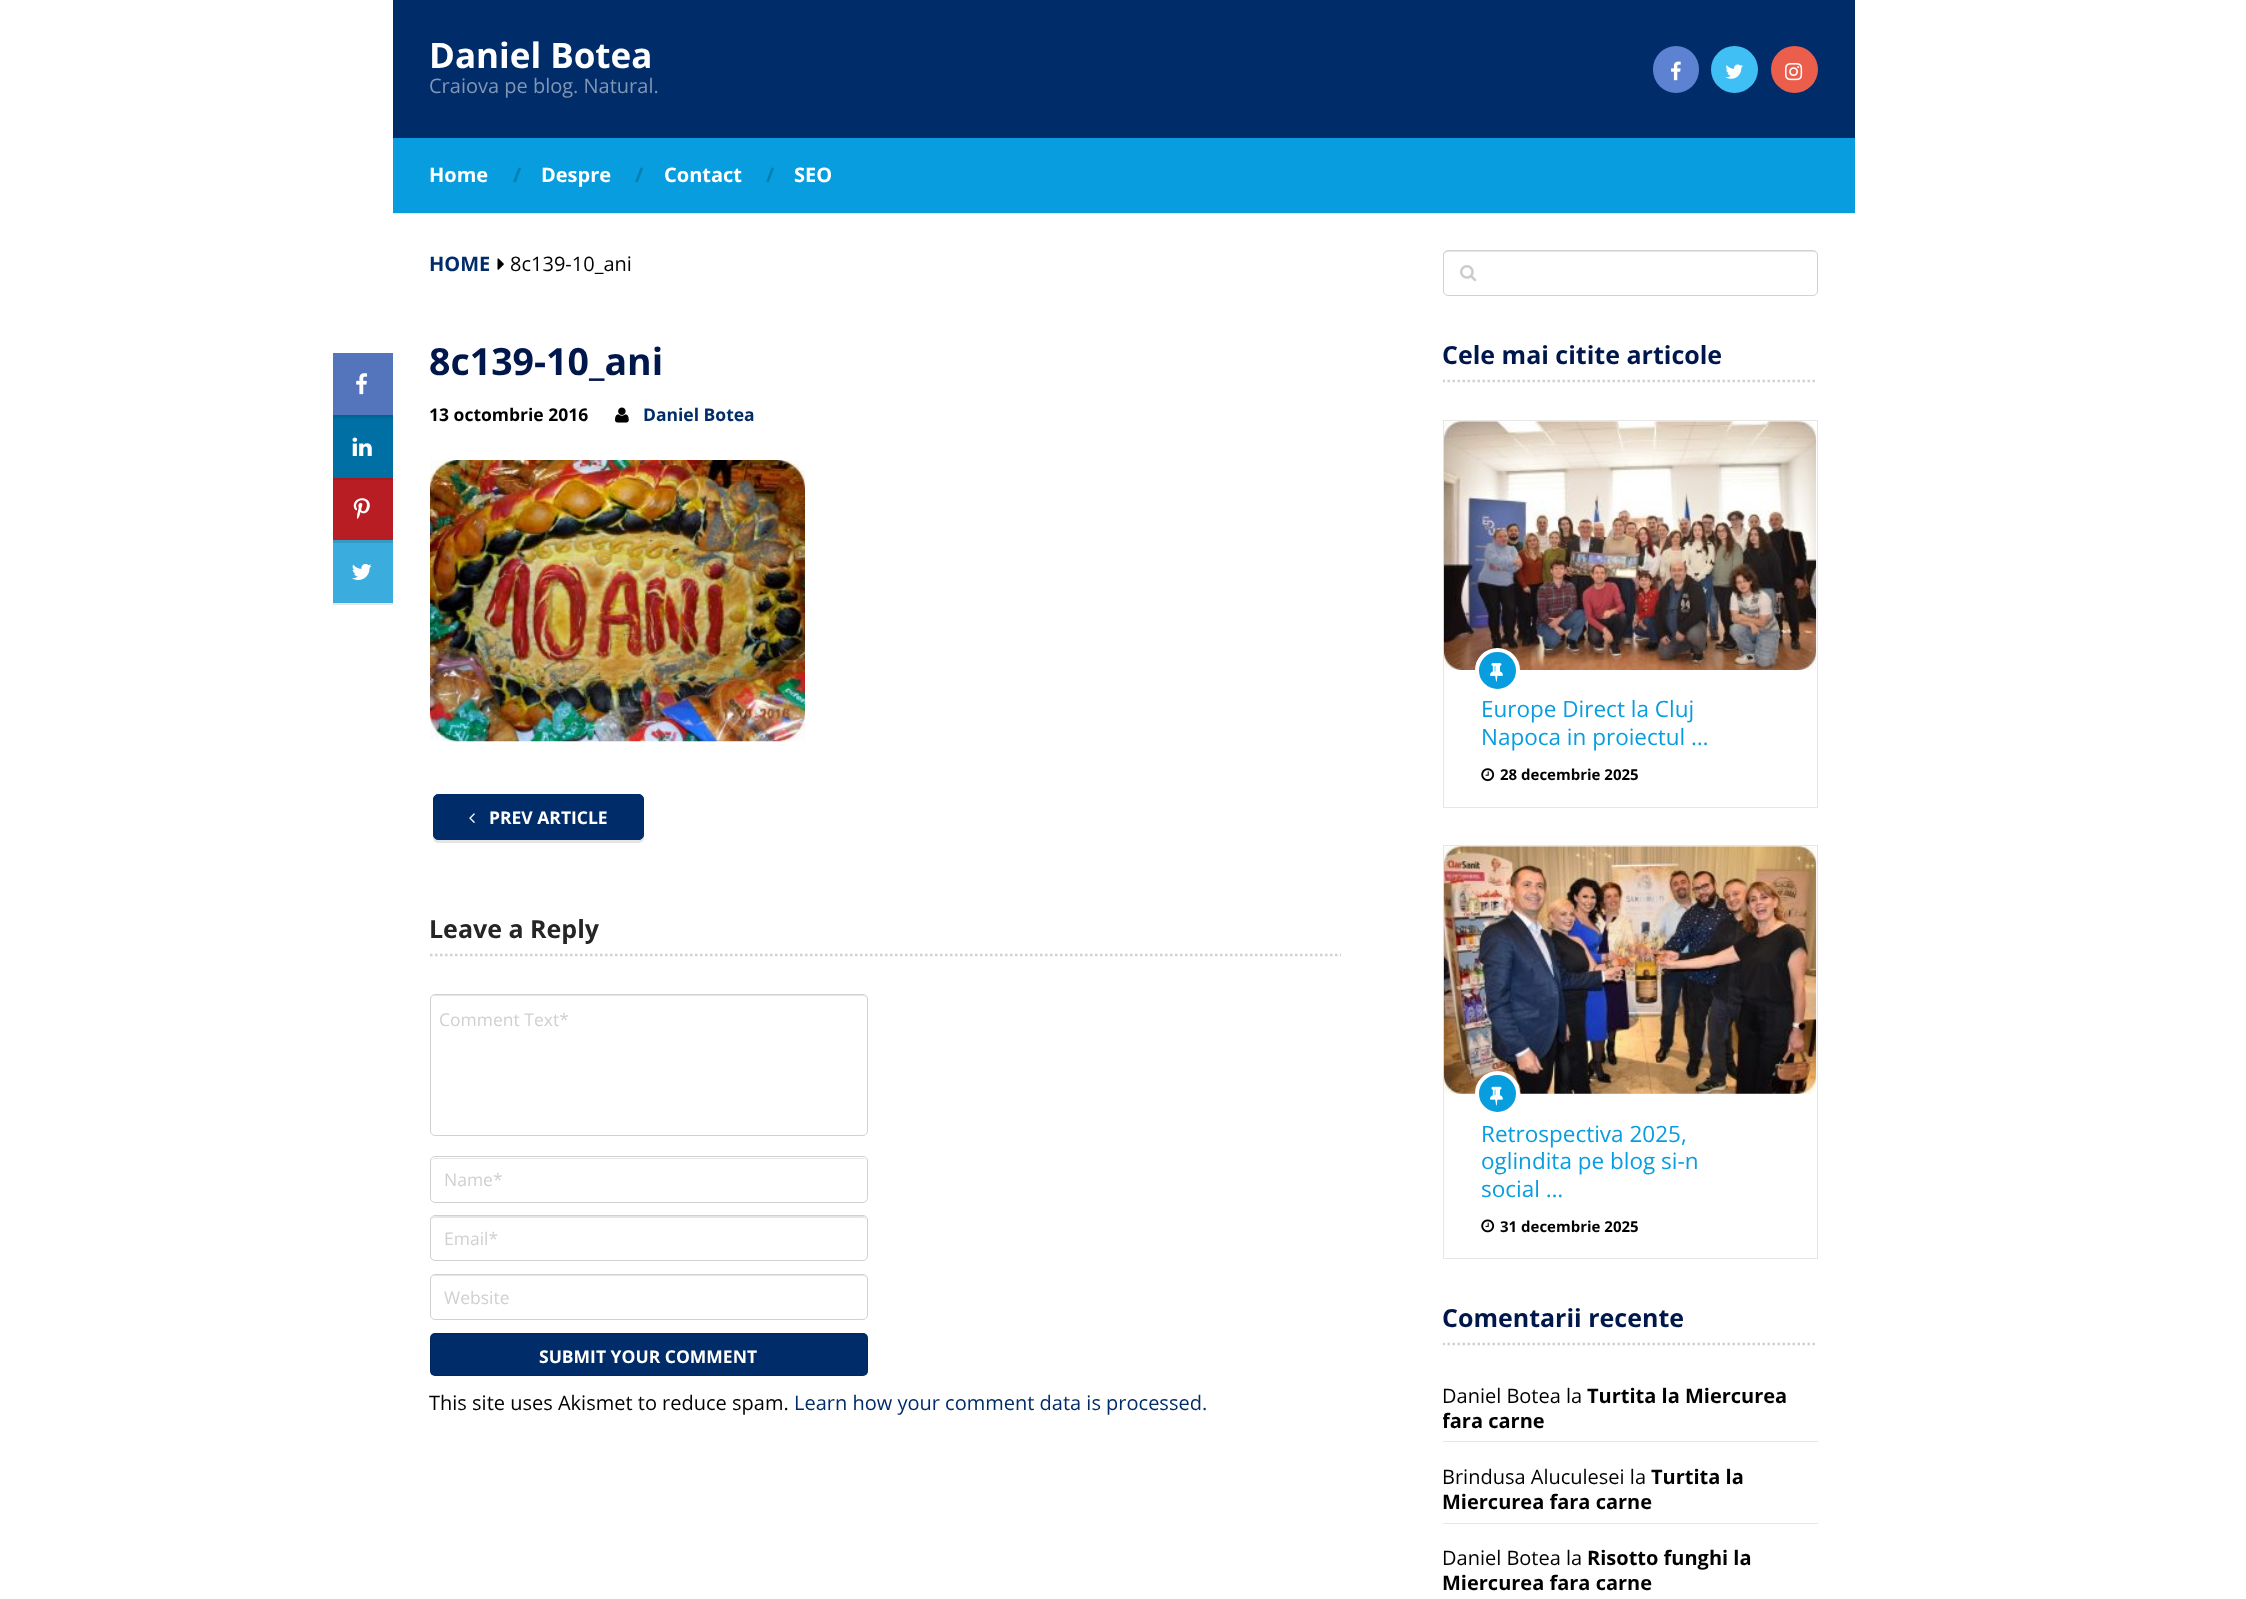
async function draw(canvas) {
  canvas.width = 2246;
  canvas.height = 1599;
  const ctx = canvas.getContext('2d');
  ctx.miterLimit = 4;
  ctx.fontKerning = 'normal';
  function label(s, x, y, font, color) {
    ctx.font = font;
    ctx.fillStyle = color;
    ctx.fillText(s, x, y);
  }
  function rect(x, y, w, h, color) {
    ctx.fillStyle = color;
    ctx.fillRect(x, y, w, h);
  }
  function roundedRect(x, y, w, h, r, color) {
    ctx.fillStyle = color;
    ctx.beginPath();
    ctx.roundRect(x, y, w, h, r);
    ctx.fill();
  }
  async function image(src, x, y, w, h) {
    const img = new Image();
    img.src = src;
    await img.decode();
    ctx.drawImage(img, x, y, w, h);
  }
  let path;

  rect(0, 0, 2246, 1599, '#fff');
  rect(333, 603, 60, 2, '#e6e6e6');
  rect(393, 0, 1462, 138, '#002c69');
  label('Daniel Botea', 429, 68, 'bold 35px Open Sans', '#fff');
  label('Craiova pe blog. Natural.', 429, 93, '20px Open Sans', '#8096b4');
  roundedRect(1653, 46, 46, 47, 23, '#5d82d1');
  await image('assets/img1.png', 1671, 61, 10, 20);
  ctx.fillStyle = '#40bff5';
  ctx.beginPath();
  ctx.arc(1734.5, 69.5, 23.5, 0, 2 * Math.PI);
  ctx.fill();
  await image('assets/img2.png', 1725, 64, 18, 15);
  ctx.fillStyle = '#eb5e4c';
  ctx.beginPath();
  ctx.arc(1794.5, 69.5, 23.5, 0, 2 * Math.PI);
  ctx.fill();
  await image('assets/img3.png', 1785, 63, 18, 18);
  ctx.fillStyle = '#0000001a';
  ctx.filter = 'blur(0.5px)';
  ctx.beginPath();
  ctx.rect(393, 139, 1462, 75);
  ctx.fill();
  ctx.filter = 'none';
  rect(393, 138, 1462, 75, '#089ddf');
  label('Home', 429, 182, 'bold 20px Open Sans', '#fff');
  label('/', 513, 182, 'bold 20px Open Sans', '#067eb2');
  label('Despre', 541, 182, 'bold 20px Open Sans', '#fff');
  label('/', 635, 182, 'bold 20px Open Sans', '#067eb2');
  label('Contact', 664, 182, 'bold 20px Open Sans', '#fff');
  label('/', 766, 182, 'bold 20px Open Sans', '#067eb2');
  label('SEO', 794, 182, 'bold 20px Open Sans', '#fff');
  label('HOME', 429, 271, 'bold 20px Open Sans', '#002c69');
  await image('assets/img4.png', 497, 258, 7, 12);
  label('8c139-10_ani', 510, 271, '20px Open Sans', '#000');
  label('8c139-10_ani', 429, 375, 'bold 37.5px Open Sans', '#00174b');
  label('13 octombrie 2016', 429, 421, 'bold 17.5px Open Sans', '#000');
  await image('assets/img5.png', 615, 407, 14, 16);
  label('Daniel Botea', 643, 421, 'bold 17.5px Open Sans', '#002c69');
  rect(333, 353, 60, 62, '#5475bc');
  await image('assets/img6.png', 356, 373, 12, 22);
  rect(333, 418, 60, 60, '#006fa4');
  rect(333, 415, 60, 3, '#006494');
  await image('assets/img7.png', 352, 437, 20, 19);
  rect(333, 480, 60, 60, '#b71d23');
  rect(333, 478, 60, 2, '#a51a20');
  await image('assets/img8.png', 353, 498, 17, 21);
  rect(333, 543, 60, 60, '#3aacdd');
  rect(333, 540, 60, 3, '#349bc7');
  await image('assets/img9.png', 352, 563, 20, 17);
  await image('assets/img10.png', 430, 460, 375, 282);
  ctx.fillStyle = '#0000001a';
  ctx.filter = 'blur(0.5px)';
  ctx.beginPath();
  ctx.roundRect(433, 796, 211, 47, 5);
  ctx.fill();
  ctx.filter = 'none';
  ctx.fillStyle = '#002c69';
  ctx.beginPath();
  ctx.roundRect(433.5, 794.5, 210, 45, 4.5);
  ctx.fill();
  ctx.strokeStyle = '#002c69';
  ctx.stroke();
  await image('assets/img11.png', 469, 813, 6, 10);
  label('PREV ARTICLE', 489, 824, 'bold 17.5px Open Sans', '#fff');
  path = new Path2D('M430 955H1341');
  ctx.strokeStyle = '#d1d1d1';
  ctx.lineWidth = 2.5;
  ctx.setLineDash([2.5, 2.5]);
  ctx.stroke(path);
  label('Leave a Reply', 429, 938, 'bold 25px Open Sans', '#252525');
  ctx.fillStyle = '#e6e6e6';
  path = new Path2D('M435 996H862C865 996 866 998 866 1000C866 997 865 995 862 995H435L433 996L432 997L431 1000C431 998 433 996 435 996Z');
  ctx.fill(path);
  ctx.beginPath();
  ctx.roundRect(430.5, 994.5, 437, 141, 4.5);
  ctx.lineWidth = 1;
  ctx.setLineDash([]);
  ctx.stroke();
  label('Comment Text*', 439, 1026, '17.5px Open Sans', '#d0d0d0');
  ctx.fillStyle = '#e6e6e6';
  path = new Path2D('M435 1159H864L866 1160C865 1159 864 1158 862 1158H435C433 1158 431 1160 431 1162C431 1160 433 1159 435 1159Z');
  ctx.fill(path);
  ctx.beginPath();
  ctx.roundRect(430.5, 1156.5, 437, 46, 4.5);
  ctx.stroke();
  label('Name*', 444, 1186, '17.5px Open Sans', '#d0d0d0');
  ctx.fillStyle = '#e6e6e6';
  path = new Path2D('M435 1218H862C865 1218 866 1219 866 1221C866 1218 865 1216 862 1216H435L433 1217L432 1218L431 1221C431 1219 433 1218 435 1218Z');
  ctx.fill(path);
  ctx.beginPath();
  ctx.roundRect(430.5, 1215.5, 437, 45, 4.5);
  ctx.stroke();
  label('Email*', 444, 1245, '17.5px Open Sans', '#d0d0d0');
  ctx.fillStyle = '#e6e6e6';
  path = new Path2D('M435 1276H862C865 1276 866 1278 866 1280C866 1277 865 1275 862 1275H435L433 1276L432 1277L431 1280C431 1278 433 1276 435 1276Z');
  ctx.fill(path);
  ctx.beginPath();
  ctx.roundRect(430.5, 1274.5, 437, 45, 4.5);
  ctx.stroke();
  label('Website', 444, 1304, '17.5px Open Sans', '#d0d0d0');
  roundedRect(430, 1333, 438, 43, 5, '#002c69');
  ctx.beginPath();
  ctx.roundRect(430.5, 1333.5, 437, 42, 4.5);
  ctx.strokeStyle = '#0000001a';
  ctx.stroke();
  label('SUBMIT YOUR COMMENT', 539, 1363, 'bold 17.5px Open Sans', '#fff');
  label('This site uses Akismet to reduce spam.', 429, 1410, '20px Open Sans', '#000');
  label('Learn how your comment data is processed.', 794, 1410, '20px Open Sans', '#002c69');
  ctx.fillStyle = '#e6e6e6';
  path = new Path2D('M1448 252H1812C1815 252 1816 254 1816 256C1816 253 1815 251 1812 251H1448C1445 251 1444 253 1444 256C1444 254 1445 252 1448 252Z');
  ctx.fill(path);
  ctx.beginPath();
  ctx.roundRect(1443.5, 250.5, 374, 45, 4.5);
  ctx.strokeStyle = '#0000002e';
  ctx.stroke();
  await image('assets/img12.png', 1460, 265, 17, 17);
  ctx.save();
  ctx.beginPath();
  ctx.rect(1443, 343, 375, 916);
  ctx.clip();
  path = new Path2D('M1442.5 381H1817.5');
  ctx.strokeStyle = '#d1d1d1';
  ctx.lineWidth = 2.5;
  ctx.setLineDash([2.5, 2.5]);
  ctx.stroke(path);
  ctx.restore();
  label('Cele mai citite articole', 1442, 364, 'bold 25px Open Sans', '#00174b');
  ctx.strokeStyle = '#e6e6e6';
  ctx.strokeRect(1443.5, 420.5, 374, 387);
  await image('assets/img13.png', 1443, 421, 374, 249);
  ctx.fillStyle = '#089ddf';
  ctx.beginPath();
  ctx.arc(1497.5, 670.5, 20.5, 0, 2 * Math.PI);
  ctx.fill();
  ctx.strokeStyle = '#fff';
  ctx.lineWidth = 4;
  ctx.stroke();
  await image('assets/img14.png', 1490, 663, 13, 19);
  label('Europe Direct la Cluj', 1481, 717, '22.5px Open Sans', '#089ddf');
  label('Napoca in proiectul …', 1481, 745, '22.5px Open Sans', '#089ddf');
  await image('assets/img15.png', 1481, 768, 14, 14);
  label('28 decembrie 2025', 1500, 780, 'bold 15px Open Sans', '#000');
  ctx.strokeStyle = '#e6e6e6';
  ctx.lineWidth = 1;
  ctx.strokeRect(1443.5, 845.5, 374, 413);
  await image('assets/img16.png', 1443, 846, 374, 248);
  ctx.fillStyle = '#089ddf';
  ctx.beginPath();
  ctx.arc(1497.5, 1093.5, 20.5, 0, 2 * Math.PI);
  ctx.fill();
  ctx.strokeStyle = '#fff';
  ctx.lineWidth = 4;
  ctx.stroke();
  await image('assets/img17.png', 1490, 1086, 13, 20);
  label('Retrospectiva 2025,', 1481, 1142, '22.5px Open Sans', '#089ddf');
  label('oglindita pe blog si-n', 1481, 1169, '22.5px Open Sans', '#089ddf');
  label('social …', 1481, 1197, '22.5px Open Sans', '#089ddf');
  await image('assets/img18.png', 1481, 1219, 14, 14);
  label('31 decembrie 2025', 1500, 1232, 'bold 15px Open Sans', '#000');
  ctx.save();
  ctx.beginPath();
  ctx.rect(1443, 1305, 375, 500);
  ctx.clip();
  path = new Path2D('M1442.5 1344H1817.5');
  ctx.strokeStyle = '#d1d1d1';
  ctx.lineWidth = 2.5;
  ctx.setLineDash([2.5, 2.5]);
  ctx.stroke(path);
  ctx.restore();
  label('Comentarii recente', 1442, 1327, 'bold 25px Open Sans', '#00174b');
  rect(1443, 1441, 375, 1, '#e6e6e6');
  label('Daniel Botea la', 1442, 1403, '20px Open Sans', '#000');
  label('Turtita la Miercurea', 1587, 1403, 'bold 20px Open Sans', '#000');
  ctx.save();
  ctx.beginPath();
  ctx.rect(1443, 1305, 375, 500);
  ctx.clip();
  label('fara carne', 1442, 1428, 'bold 20px Open Sans', '#000');
  ctx.restore();
  rect(1443, 1523, 375, 1, '#e6e6e6');
  label('Brindusa Aluculesei la', 1442, 1484, '20px Open Sans', '#000');
  label('Turtita la', 1651, 1484, 'bold 20px Open Sans', '#000');
  label('Miercurea fara carne', 1442, 1509, 'bold 20px Open Sans', '#000');
  label('Daniel Botea la', 1442, 1565, '20px Open Sans', '#000');
  label('Risotto funghi la', 1587, 1565, 'bold 20px Open Sans', '#000');
  label('Miercurea fara carne', 1442, 1590, 'bold 20px Open Sans', '#000');
}

draw(document.querySelector('canvas'));
